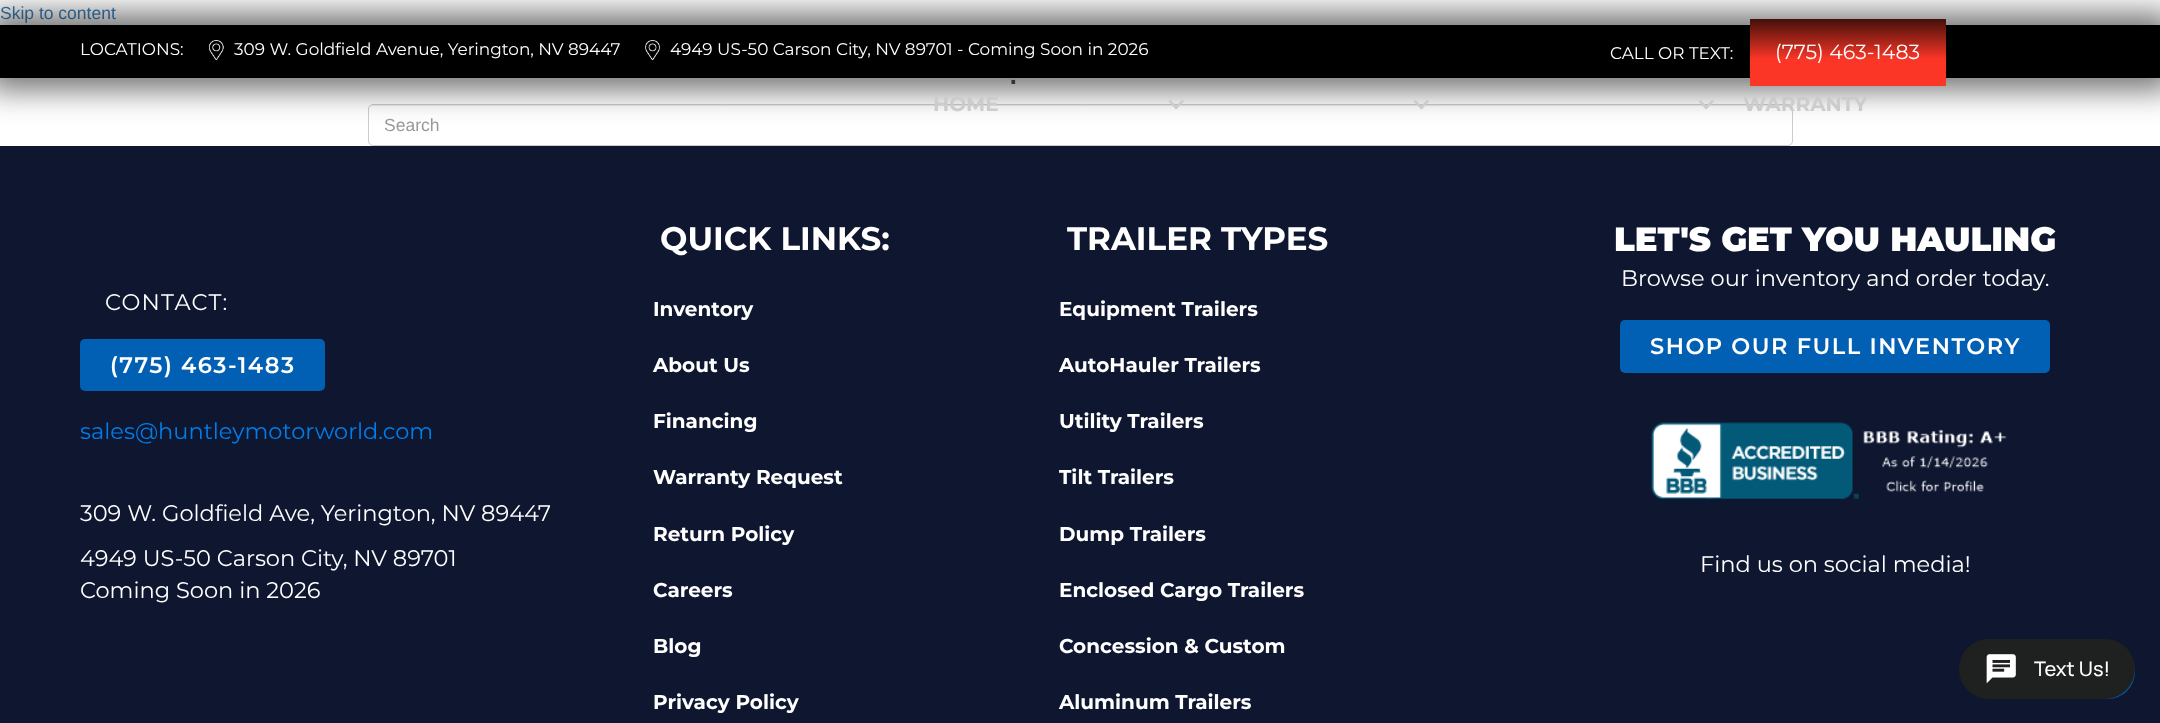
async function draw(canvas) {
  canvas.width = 2160;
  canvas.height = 723;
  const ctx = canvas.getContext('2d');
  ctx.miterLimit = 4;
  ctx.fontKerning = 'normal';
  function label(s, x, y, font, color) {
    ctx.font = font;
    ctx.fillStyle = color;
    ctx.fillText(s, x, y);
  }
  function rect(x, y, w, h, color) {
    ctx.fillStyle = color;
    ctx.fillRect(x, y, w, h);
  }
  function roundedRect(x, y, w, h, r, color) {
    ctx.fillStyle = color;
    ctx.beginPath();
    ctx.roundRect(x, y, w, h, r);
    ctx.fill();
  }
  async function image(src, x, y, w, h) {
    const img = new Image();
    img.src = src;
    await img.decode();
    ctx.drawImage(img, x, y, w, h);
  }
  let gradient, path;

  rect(0, 0, 2160, 723, '#fff');
  label('Skip to content', 0, 19, '17.5px Liberation Sans', '#337ab7');
  ctx.fillStyle = '#ececec';
  path = new Path2D('M372 106H1788C1790 106 1791 108 1791 110V109C1791 107 1789 105 1787 105H373C371 105 369 107 369 109V110C369 108 370 106 372 106Z');
  ctx.fill(path);
  ctx.beginPath();
  ctx.roundRect(368.5, 104.5, 1424, 41, 4.5);
  ctx.strokeStyle = '#ccc';
  ctx.stroke();
  ctx.fillStyle = '#1c1c1c9e';
  ctx.filter = 'blur(15.5px)';
  ctx.beginPath();
  ctx.rect(-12, 13, 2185, 77);
  ctx.fill();
  ctx.filter = 'none';
  rect(0, 25, 2160, 53, '#000');
  label('LOCATIONS:', 80, 55, '16.9px Montserrat', '#fff');
  await image('assets/img1.png', 208, 40, 16, 20);
  label('309 W. Goldfield Avenue, Yerington, NV 89447', 234, 55, '16.9px Montserrat', '#fff');
  await image('assets/img2.png', 645, 40, 15, 20);
  label('4949 US-50 Carson City, NV 89701 - Coming Soon in 2026', 670, 55, '16.9px Montserrat', '#fff');
  label('CALL OR TEXT:', 1610, 59, '16.9px Montserrat', '#fff');
  gradient = ctx.createLinearGradient(1848, 19, 1848, 86);
  gradient.addColorStop(0, '#430f0a');
  gradient.addColorStop(0.6, '#fb3626');
  ctx.fillStyle = gradient;
  ctx.fillRect(1750, 19, 196, 67);
  label('(775) 463-1483', 1775, 59, '20.5px Montserrat', '#fff');
  label('HOME', 933, 111, 'bold 20px Montserrat', '#ccc');
  path = new Path2D('M1182.5 99.5L1184 101.5L1176 109.5L1174.5 107.5Z');
  ctx.fill(path);
  path = new Path2D('M1170 99.5L1178 107.5L1176 109.5L1168.5 101.5Z');
  ctx.fill(path);
  path = new Path2D('M1427.5 99.5L1429 101.5L1421.5 109.5L1419.5 107.5Z');
  ctx.fill(path);
  path = new Path2D('M1415 99.5L1423 107.5L1421.5 109.5L1413.5 101.5Z');
  ctx.fill(path);
  path = new Path2D('M1712.5 99.5L1714 101.5L1706 109.5L1704.5 107.5Z');
  ctx.fill(path);
  path = new Path2D('M1700 99.5L1708 107.5L1706 109.5L1698.5 101.5Z');
  ctx.fill(path);
  label('WARRANTY', 1743, 111, 'bold 20px Montserrat', '#ccc');
  label('.', 1008, 84, '38px Liberation Sans', '#333');
  label('Search', 384, 131, '17.5px Liberation Sans', '#999');
  rect(0, 146, 2160, 577, '#0f1730');
  ctx.letterSpacing = '1.25px';
  label('CONTACT:', 105, 310, '22.5px Montserrat', '#fff');
  roundedRect(80, 339, 245, 52, 5, '#0160b3');
  ctx.letterSpacing = '1.5px';
  label('(775) 463-1483', 110, 373, '600 22.5px Montserrat', '#fff');
  ctx.letterSpacing = '0px';
  label('sales@huntleymotorworld.com', 80, 439, '22.5px Montserrat', '#007deb');
  label('309 W. Goldfield Ave, Yerington, NV 89447', 80, 521, '22.5px Montserrat', '#fff');
  label('4949 US-50 Carson City, NV 89701', 80, 566, '22.5px Montserrat', '#fff');
  label('Coming Soon in 2026', 80, 598, '22.5px Montserrat', '#fff');
  label('QUICK LINKS:', 660, 250, 'bold 32.5px Montserrat', '#fff');
  label('Inventory', 653, 316, 'bold 20px Montserrat', '#fff');
  label('About Us', 653, 372, 'bold 20px Montserrat', '#fff');
  label('Financing', 653, 428, 'bold 20px Montserrat', '#fff');
  label('Warranty Request', 653, 484, 'bold 20px Montserrat', '#fff');
  label('Return Policy', 653, 541, 'bold 20px Montserrat', '#fff');
  label('Careers', 653, 597, 'bold 20px Montserrat', '#fff');
  label('Blog', 653, 653, 'bold 20px Montserrat', '#fff');
  label('Privacy Policy', 653, 709, 'bold 20px Montserrat', '#fff');
  label('TRAILER TYPES', 1067, 250, 'bold 32.5px Montserrat', '#fff');
  label('Equipment Trailers', 1059, 316, 'bold 20px Montserrat', '#fff');
  label('AutoHauler Trailers', 1059, 372, 'bold 20px Montserrat', '#fff');
  label('Utility Trailers', 1059, 428, 'bold 20px Montserrat', '#fff');
  label('Tilt Trailers', 1059, 484, 'bold 20px Montserrat', '#fff');
  label('Dump Trailers', 1059, 541, 'bold 20px Montserrat', '#fff');
  label('Enclosed Cargo Trailers', 1059, 597, 'bold 20px Montserrat', '#fff');
  label('Concession & Custom', 1059, 653, 'bold 20px Montserrat', '#fff');
  label('Aluminum Trailers', 1059, 709, 'bold 20px Montserrat', '#fff');
  label('LET\'S GET YOU HAULING', 1614, 251, '900 33.75px Montserrat', '#fff');
  label('Browse our inventory and order today.', 1621, 286, '22.5px Montserrat', '#fff');
  roundedRect(1620, 320, 430, 53, 5, '#0160b3');
  ctx.letterSpacing = '1.5px';
  label('SHOP OUR FULL INVENTORY', 1650, 354, '600 22.5px Montserrat', '#fff');
  await image('assets/img3.png', 1651, 422, 356, 77);
  ctx.letterSpacing = '0px';
  label('Find us on social media!', 1700, 572, '22.5px Montserrat', '#fff');
  roundedRect(2000, 644, 135, 55, 27.5, '#0160b3');
  roundedRect(1959, 639, 176, 60, 30, '#1f2121');
  await image('assets/img4.png', 1986, 654, 30, 30);
  label('Text Us!', 2034, 676, '500 20px Manrope', '#fff');
}

draw(document.querySelector('canvas'));
